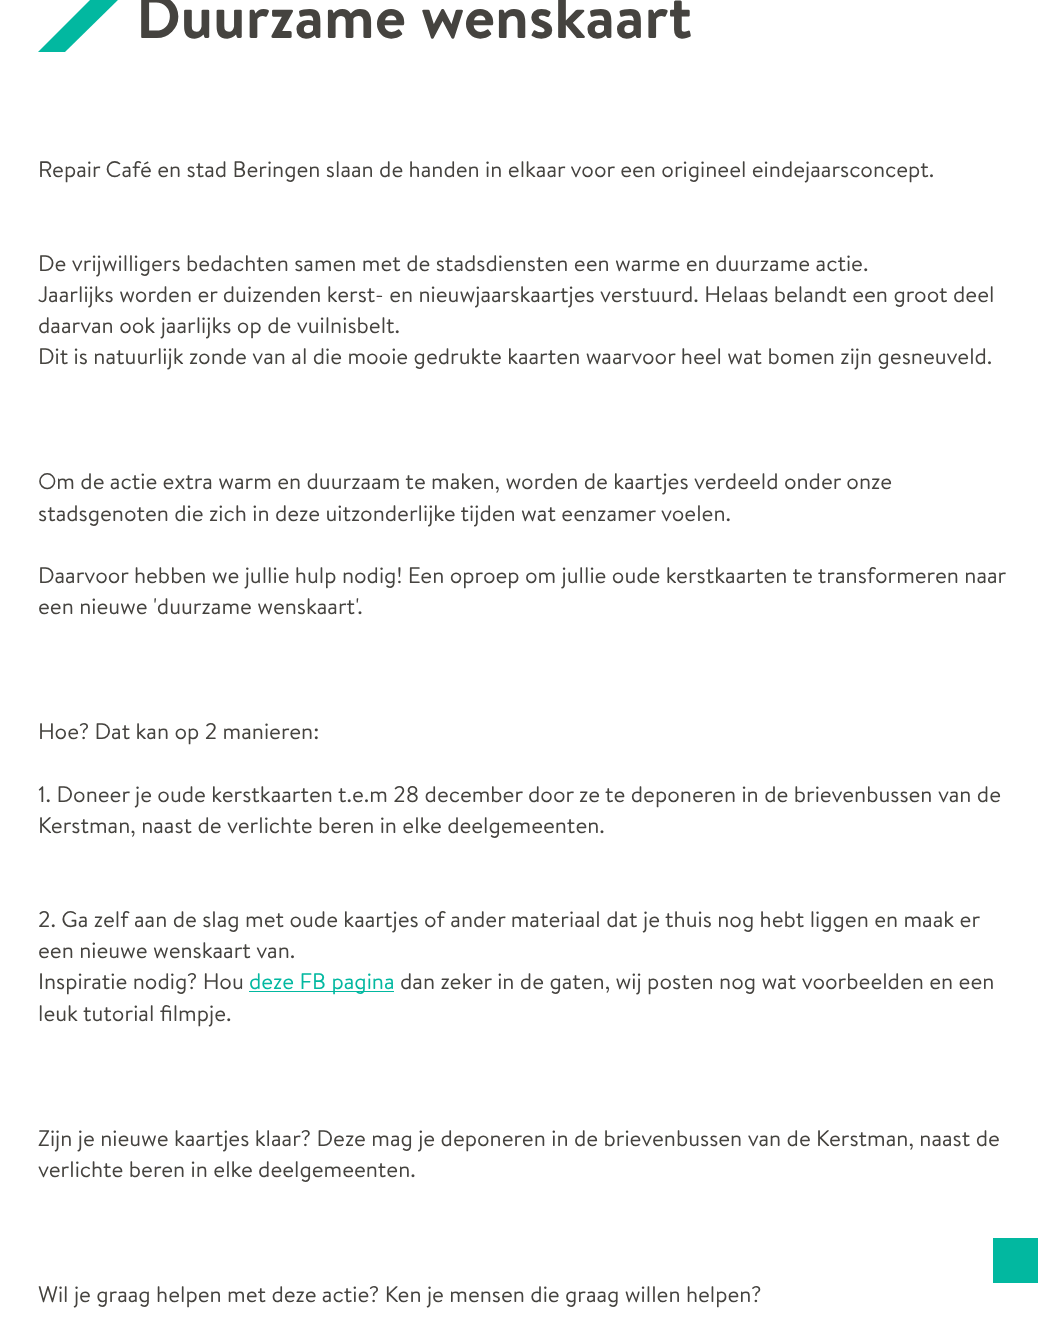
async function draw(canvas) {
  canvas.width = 1056;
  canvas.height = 1319;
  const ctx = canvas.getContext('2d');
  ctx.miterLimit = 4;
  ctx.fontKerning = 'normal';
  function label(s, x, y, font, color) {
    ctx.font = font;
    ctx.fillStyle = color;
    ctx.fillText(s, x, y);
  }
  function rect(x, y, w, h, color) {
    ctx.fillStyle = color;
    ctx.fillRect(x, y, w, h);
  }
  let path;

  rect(0, 0, 1056, 1319, '#fff');
  ctx.fillStyle = '#02b8a0';
  path = new Path2D('M38 52H65L120-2H92Z');
  ctx.fill(path);
  label('Duurzame wenskaart', 136, 38, 'bold 61.25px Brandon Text', '#45433f');
  label('Repair Café en stad Beringen slaan de handen in elkaar voor een origineel eindejaarsconcept.', 38, 177, '22.5px Brandon Text', '#45433f');
  label('De vrijwilligers bedachten samen met de stadsdiensten een warme en duurzame actie.', 38, 271, '22.5px Brandon Text', '#45433f');
  label('Jaarlijks worden er duizenden kerst- en nieuwjaarskaartjes verstuurd. Helaas belandt een groot deel', 38, 302, '22.5px Brandon Text', '#45433f');
  label('daarvan ook jaarlijks op de vuilnisbelt.', 38, 333, '22.5px Brandon Text', '#45433f');
  label('Dit is natuurlijk zonde van al die mooie gedrukte kaarten waarvoor heel wat bomen zijn gesneuveld.', 38, 364, '22.5px Brandon Text', '#45433f');
  label('Om de actie extra warm en duurzaam te maken, worden de kaartjes verdeeld onder onze', 38, 489, '22.5px Brandon Text', '#45433f');
  label('stadsgenoten die zich in deze uitzonderlijke tijden wat eenzamer voelen.', 38, 521, '22.5px Brandon Text', '#45433f');
  label('Daarvoor hebben we jullie hulp nodig! Een oproep om jullie oude kerstkaarten te transformeren naar', 38, 583, '22.5px Brandon Text', '#45433f');
  label('een nieuwe \'duurzame wenskaart\'.', 38, 614, '22.5px Brandon Text', '#45433f');
  label('Hoe? Dat kan op 2 manieren:', 38, 739, '22.5px Brandon Text', '#45433f');
  label('1. Doneer je oude kerstkaarten t.e.m 28 december door ze te deponeren in de brievenbussen van de', 38, 802, '22.5px Brandon Text', '#45433f');
  label('Kerstman, naast de verlichte beren in elke deelgemeenten.', 38, 833, '22.5px Brandon Text', '#45433f');
  label('2. Ga zelf aan de slag met oude kaartjes of ander materiaal dat je thuis nog hebt liggen en maak er', 38, 927, '22.5px Brandon Text', '#45433f');
  label('een nieuwe wenskaart van.', 38, 958, '22.5px Brandon Text', '#45433f');
  label('Inspiratie nodig? Hou', 38, 989, '22.5px Brandon Text', '#45433f');
  rect(249, 991, 145, 1, '#02b8a0');
  label('deze FB pagina', 249, 989, '22.5px Brandon Text', '#02b8a0');
  label('dan zeker in de gaten, wij posten nog wat voorbeelden en een', 400, 989, '22.5px Brandon Text', '#45433f');
  label('leuk tutorial filmpje.', 38, 1021, '22.5px Brandon Text', '#45433f');
  label('Zijn je nieuwe kaartjes klaar? Deze mag je deponeren in de brievenbussen van de Kerstman, naast de', 38, 1146, '22.5px Brandon Text', '#45433f');
  label('verlichte beren in elke deelgemeenten.', 38, 1177, '22.5px Brandon Text', '#45433f');
  label('Wil je graag helpen met deze actie? Ken je mensen die graag willen helpen?', 38, 1302, '22.5px Brandon Text', '#45433f');
  rect(993, 1238, 45, 45, '#02b8a0');
}

draw(document.querySelector('canvas'));
